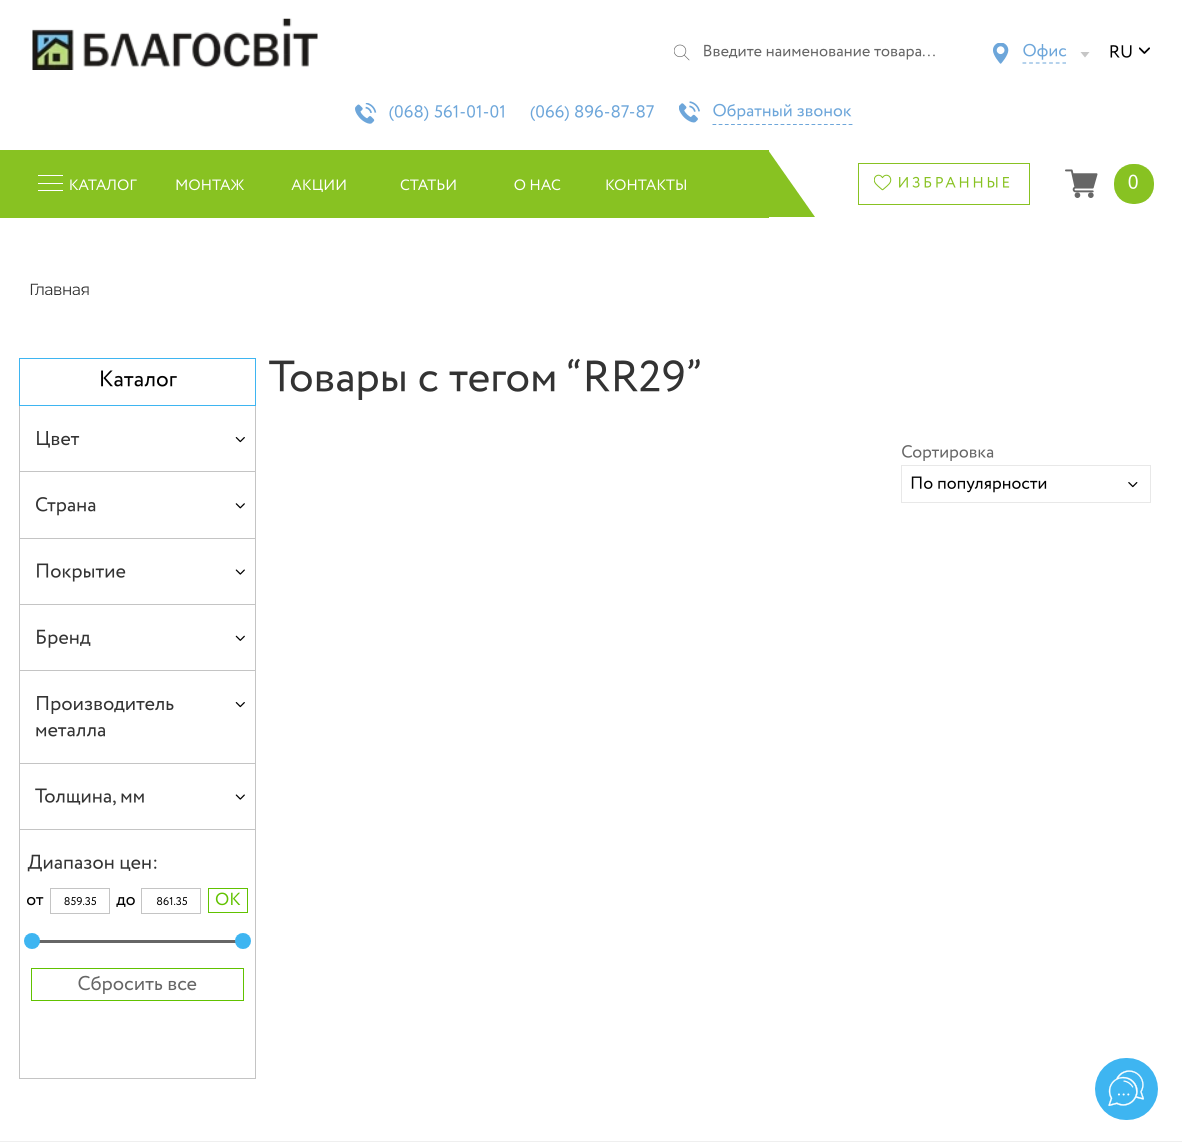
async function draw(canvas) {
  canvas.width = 1182;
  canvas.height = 1144;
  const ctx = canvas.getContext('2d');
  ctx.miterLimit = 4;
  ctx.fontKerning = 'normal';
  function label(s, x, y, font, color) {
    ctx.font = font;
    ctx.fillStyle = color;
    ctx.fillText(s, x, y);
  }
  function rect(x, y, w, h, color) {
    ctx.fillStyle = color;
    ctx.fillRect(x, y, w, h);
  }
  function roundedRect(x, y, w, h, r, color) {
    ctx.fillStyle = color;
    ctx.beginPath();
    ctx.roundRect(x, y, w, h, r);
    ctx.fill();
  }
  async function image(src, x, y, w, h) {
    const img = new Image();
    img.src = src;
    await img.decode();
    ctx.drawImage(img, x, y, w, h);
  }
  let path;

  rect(0, 0, 1182, 1144, '#fff');
  await image('assets/img1.png', 32, 18, 286, 52);
  await image('assets/img2.png', 674, 44, 16, 17);
  await image('assets/img3.png', 704, 44, 231, 16);
  await image('assets/img4.png', 993, 43, 16, 21);
  path = new Path2D('M1022.5 63H1066');
  ctx.strokeStyle = '#6da6da';
  ctx.lineWidth = 1.2;
  ctx.setLineDash([3.75, 2.91]);
  ctx.stroke(path);
  await image('assets/img5.png', 1023, 43, 44, 17);
  ctx.fillStyle = '#c6c6c6';
  path = new Path2D('M1085 57.5L1080.5 52H1089.5Z');
  ctx.fill(path);
  await image('assets/img6.png', 1110, 45, 22, 13);
  await image('assets/img7.png', 1139, 47, 11, 7);
  await image('assets/img8.png', 355, 103, 22, 21);
  await image('assets/img9.png', 389, 105, 40, 16);
  await image('assets/img10.png', 434, 105, 70, 13);
  await image('assets/img11.png', 530, 105, 39, 16);
  await image('assets/img12.png', 575, 105, 79, 13);
  await image('assets/img13.png', 679, 101, 21, 22);
  path = new Path2D('M712.5 124.5H852.5');
  ctx.setLineDash([3.75, 2.44]);
  ctx.stroke(path);
  await image('assets/img14.png', 713, 103, 139, 17);
  rect(0, 150, 769, 68, '#88c222');
  rect(38, 175, 25, 1, '#fff');
  rect(38, 183, 25, 1, '#fff');
  rect(38, 190, 25, 1, '#fff');
  await image('assets/img15.png', 70, 179, 67, 12);
  await image('assets/img16.png', 176, 179, 68, 12);
  await image('assets/img17.png', 291, 179, 55, 13);
  await image('assets/img18.png', 400, 179, 56, 12);
  await image('assets/img19.png', 514, 179, 47, 12);
  await image('assets/img20.png', 606, 179, 80, 12);
  ctx.fillStyle = '#88c222';
  path = new Path2D('M815 217H768V150Z');
  ctx.fill(path);
  ctx.strokeStyle = '#88c222';
  ctx.lineWidth = 1;
  ctx.setLineDash([]);
  ctx.strokeRect(858.5, 163.5, 171, 41);
  await image('assets/img21.png', 874, 174, 18, 17);
  await image('assets/img22.png', 899, 176, 111, 12);
  await image('assets/img23.png', 1065, 169, 33, 29);
  roundedRect(1114, 164, 40, 40, 19, '#88c222');
  await image('assets/img24.png', 1128, 174, 10, 15);
  ctx.letterSpacing = '-0.75px';
  label('Главная', 29, 295, '16px Montserrat', '#333');
  ctx.strokeStyle = '#c4c4c4';
  ctx.strokeRect(19.5, 358.5, 236, 720);
  ctx.strokeStyle = '#3eb5f1';
  ctx.strokeRect(19.5, 358.5, 236, 47);
  await image('assets/img25.png', 101, 370, 76, 17);
  rect(19, 471, 237, 1, '#c4c4c4');
  await image('assets/img26.png', 37, 431, 43, 17);
  await image('assets/img27.png', 235, 437, 10, 6);
  rect(19, 538, 237, 1, '#c4c4c4');
  await image('assets/img28.png', 36, 497, 60, 19);
  await image('assets/img29.png', 235, 503, 10, 6);
  rect(19, 604, 237, 1, '#c4c4c4');
  await image('assets/img30.png', 37, 563, 89, 19);
  await image('assets/img31.png', 235, 569, 10, 6);
  rect(19, 670, 237, 1, '#c4c4c4');
  await image('assets/img32.png', 37, 629, 54, 19);
  await image('assets/img33.png', 235, 635, 10, 6);
  rect(19, 763, 237, 1, '#c4c4c4');
  await image('assets/img34.png', 37, 696, 137, 18);
  await image('assets/img35.png', 36, 727, 69, 10);
  await image('assets/img27.png', 235, 702, 10, 6);
  rect(19, 829, 237, 1, '#c4c4c4');
  await image('assets/img36.png', 35, 788, 109, 18);
  await image('assets/img31.png', 235, 794, 10, 6);
  await image('assets/img37.png', 27, 854, 130, 18);
  await image('assets/img38.png', 27, 896, 17, 10);
  ctx.strokeStyle = '#c4c4c4';
  ctx.strokeRect(50.5, 888.5, 59, 25);
  await image('assets/img39.png', 64, 897, 32, 9);
  await image('assets/img40.png', 116, 896, 19, 11);
  ctx.strokeRect(141.5, 888.5, 59, 25);
  await image('assets/img41.png', 157, 897, 30, 9);
  ctx.strokeStyle = '#61c200';
  ctx.strokeRect(208.5, 888.5, 39, 24);
  await image('assets/img42.png', 215, 892, 26, 14);
  rect(36, 940, 200, 3, '#666');
  ctx.fillStyle = '#3eb5f1';
  ctx.beginPath();
  ctx.arc(32, 941, 8, 0, 2 * Math.PI);
  ctx.fill();
  ctx.beginPath();
  ctx.arc(243, 941, 8, 0, 2 * Math.PI);
  ctx.fill();
  ctx.strokeRect(31.5, 968.5, 212, 32);
  await image('assets/img43.png', 78, 975, 119, 19);
  await image('assets/img44.png', 269, 358, 431, 42);
  await image('assets/img45.png', 902, 445, 92, 16);
  ctx.strokeStyle = '#e8e8e8';
  ctx.strokeRect(901.5, 465.5, 249, 37);
  await image('assets/img46.png', 911, 476, 136, 17);
  await image('assets/img47.png', 1128, 482, 10, 6);
  rect(0, 1141, 1182, 1, '#efefef');
  roundedRect(1095, 1058, 63, 62, 31, '#3eb5f1');
  await image('assets/img48.png', 1108, 1070, 36, 37);
}

draw(document.querySelector('canvas'));
